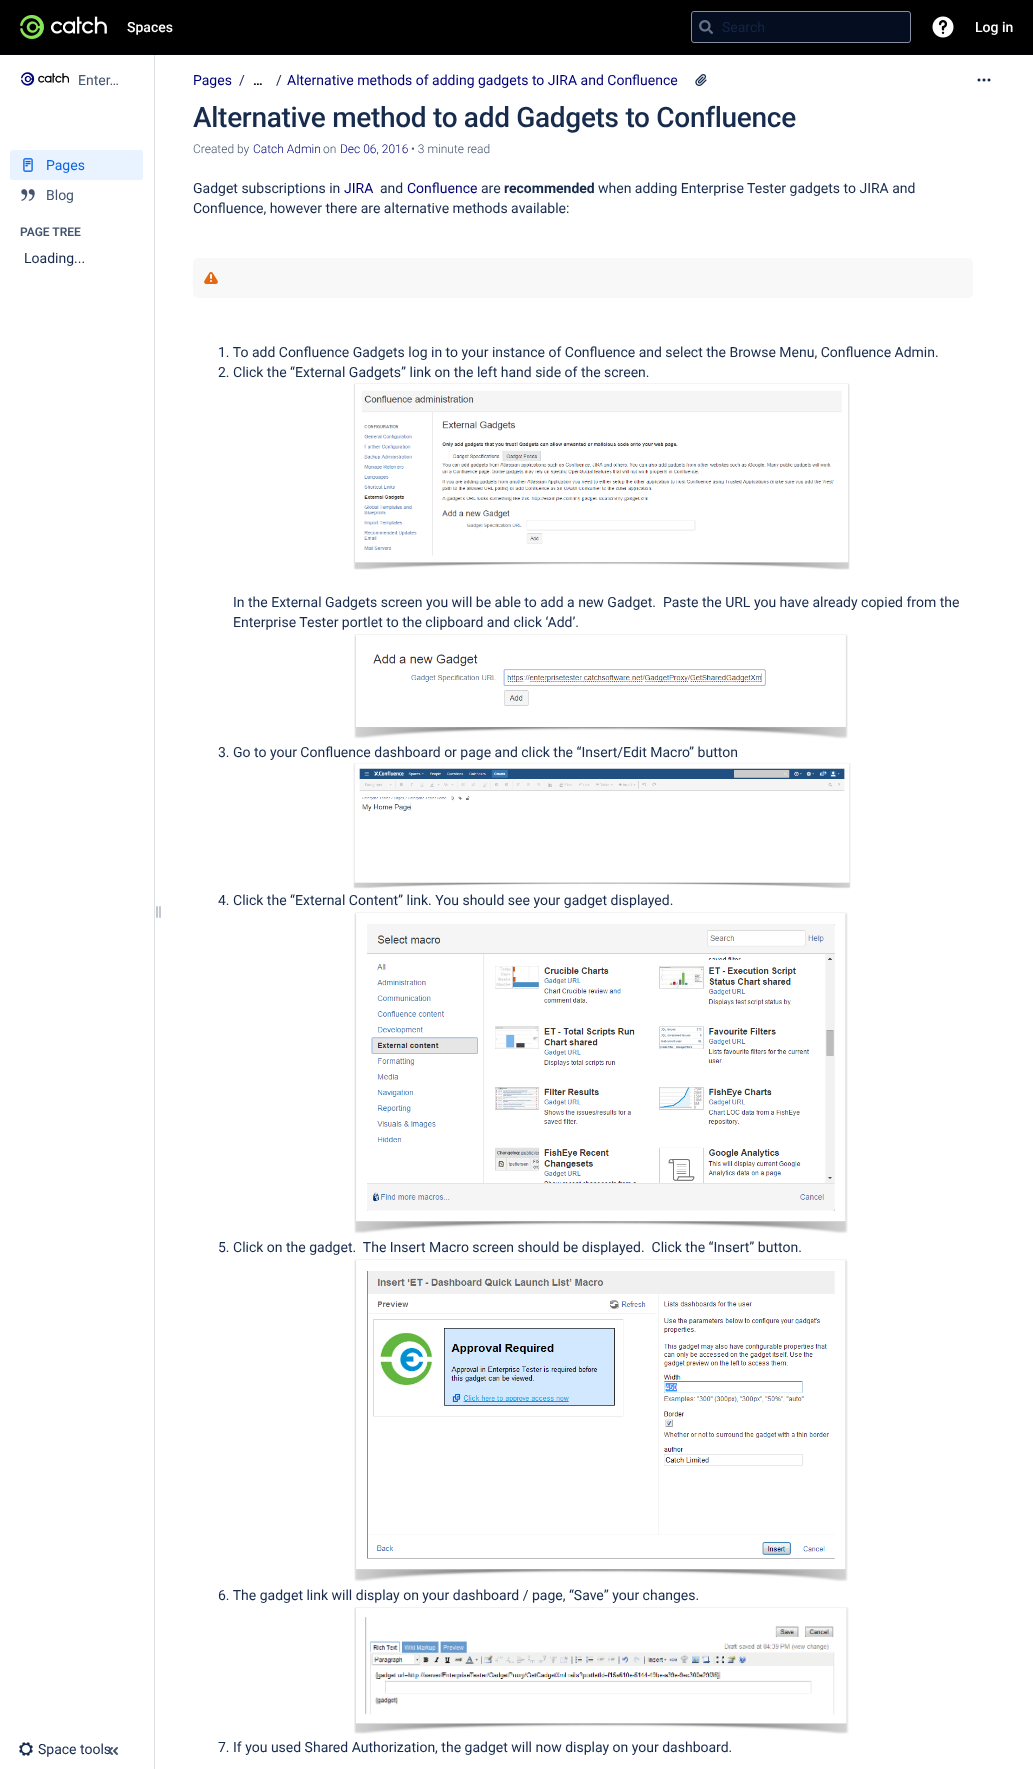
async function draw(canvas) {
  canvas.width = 1033;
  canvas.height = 1769;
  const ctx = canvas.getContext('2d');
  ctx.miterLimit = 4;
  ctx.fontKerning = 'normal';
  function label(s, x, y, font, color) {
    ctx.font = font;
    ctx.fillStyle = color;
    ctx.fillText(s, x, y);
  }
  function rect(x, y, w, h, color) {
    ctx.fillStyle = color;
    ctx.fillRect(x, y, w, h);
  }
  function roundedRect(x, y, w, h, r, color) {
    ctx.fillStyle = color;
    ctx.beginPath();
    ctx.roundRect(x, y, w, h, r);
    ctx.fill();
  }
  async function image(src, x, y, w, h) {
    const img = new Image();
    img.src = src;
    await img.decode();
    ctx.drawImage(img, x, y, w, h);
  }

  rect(0, 0, 1033, 1769, '#fff');
  rect(0, 0, 1033, 54, '#000');
  rect(0, 54, 1033, 1, '#010409');
  await image('assets/img1.png', 20, 15, 87, 24);
  label('Spaces', 127, 32, '500 14px Roboto', '#fff');
  ctx.fillStyle = '#040e20';
  ctx.beginPath();
  ctx.roundRect(691.5, 11.5, 219, 31, 2.5);
  ctx.fill();
  ctx.strokeStyle = '#8590a2';
  ctx.stroke();
  await image('assets/img2.png', 699, 20, 14, 14);
  label('Search', 722, 32, '14px Roboto', '#132544');
  await image('assets/img3.png', 932, 16, 22, 22);
  label('Log in', 975, 32, '500 14px Roboto', '#fff');
  await image('assets/img4.png', 21, 72, 48, 14);
  label('Enter…', 78, 85, '14px Roboto', '#44546f');
  roundedRect(10, 150, 133, 30, 3, '#e9f2ff');
  await image('assets/img5.png', 23, 158, 10, 14);
  label('Pages', 46, 170, '14px Roboto', '#0c66e4');
  await image('assets/img6.png', 21, 189, 14, 12);
  label('Blog', 46, 200, '14px Roboto', '#44546f');
  label('PAGE TREE', 20, 236, '600 12px Roboto', '#44546f');
  label('Loading...', 24, 263, '14px Roboto', '#172b4d');
  await image('assets/img7.png', 156, 906, 5, 12);
  rect(154, 55, 1, 1714, '#dde0e5');
  await image('assets/img8.png', 19, 1742, 14, 14);
  label('Space tools', 38, 1754, '14px Roboto', '#172b4d');
  await image('assets/img9.png', 108, 1747, 10, 8);
  label('Pages', 193, 85, '14px Roboto', '#000278');
  label('/', 239, 85, '14px Roboto', '#172b4d');
  label('…', 253, 85, 'bold 13px Roboto', '#000');
  label('/', 276, 85, '14px Roboto', '#172b4d');
  label('Alternative methods of adding gadgets to JIRA and Confluence', 287, 85, '14px Roboto', '#000278');
  await image('assets/img10.png', 695, 74, 12, 12);
  ctx.letterSpacing = '-0.3px';
  label('Alternative method to add Gadgets to Confluence', 193, 127, '500 28px Roboto', '#172b4d');
  await image('assets/img11.png', 977, 78, 14, 4);
  ctx.letterSpacing = '0px';
  label('Created by', 193, 153, '300 12px Roboto', '#44546f');
  label('Catch Admin', 253, 153, '300 12px Roboto', '#000278');
  label('on', 323, 153, '300 12px Roboto', '#44546f');
  label('Dec 06, 2016', 340, 153, '300 12px Roboto', '#000278');
  label('• 3 minute read', 411, 153, '300 12px Roboto', '#44546f');
  label('Gadget subscriptions in', 193, 193, '14px Roboto', '#172b4d');
  label('JIRA', 344, 193, '14px Roboto', '#000278');
  label('and', 380, 193, '14px Roboto', '#172b4d');
  label('Confluence', 407, 193, '14px Roboto', '#000278');
  label('are', 481, 193, '14px Roboto', '#172b4d');
  label('recommended', 504, 193, 'bold 14px Roboto', '#172b4d');
  label('when adding Enterprise Tester gadgets to JIRA and', 598, 193, '14px Roboto', '#172b4d');
  label('Confluence, however there are alternative methods available:', 193, 213, '14px Roboto', '#172b4d');
  roundedRect(193, 258, 780, 40, 5, '#f8f8f8');
  await image('assets/img12.png', 204, 272, 14, 12);
  label('1. To add Confluence Gadgets log in to your instance of Confluence and select the Browse Menu, Confluence Admin.', 218, 357, '14px Roboto', '#172b4d');
  label('2. Click the “External Gadgets” link on the left hand side of the screen.', 218, 377, '14px Roboto', '#172b4d');
  await image('assets/img13.png', 353, 383, 497, 187);
  label('In the External Gadgets screen you will be able to add a new Gadget.  Paste the URL you have already copied from the', 233, 607, '14px Roboto', '#172b4d');
  label('Enterprise Tester portlet to the clipboard and click ‘Add’.', 233, 627, '14px Roboto', '#172b4d');
  await image('assets/img14.png', 354, 634, 494, 105);
  label('3. Go to your Confluence dashboard or page and click the “Insert/Edit Macro” button', 218, 757, '14px Roboto', '#172b4d');
  await image('assets/img15.png', 353, 763, 498, 126);
  label('4. Click the “External Content” link. You should see your gadget displayed.', 218, 905, '14px Roboto', '#172b4d');
  await image('assets/img16.png', 354, 912, 494, 322);
  label('5. Click on the gadget.  The Insert Macro screen should be displayed.  Click the “Insert” button.', 218, 1252, '14px Roboto', '#172b4d');
  await image('assets/img17.png', 354, 1259, 494, 323);
  label('6. The gadget link will display on your dashboard / page, “Save” your changes.', 218, 1600, '14px Roboto', '#172b4d');
  await image('assets/img18.png', 354, 1607, 495, 127);
  label('7. If you used Shared Authorization, the gadget will now display on your dashboard.', 218, 1752, '14px Roboto', '#172b4d');
}

draw(document.querySelector('canvas'));
